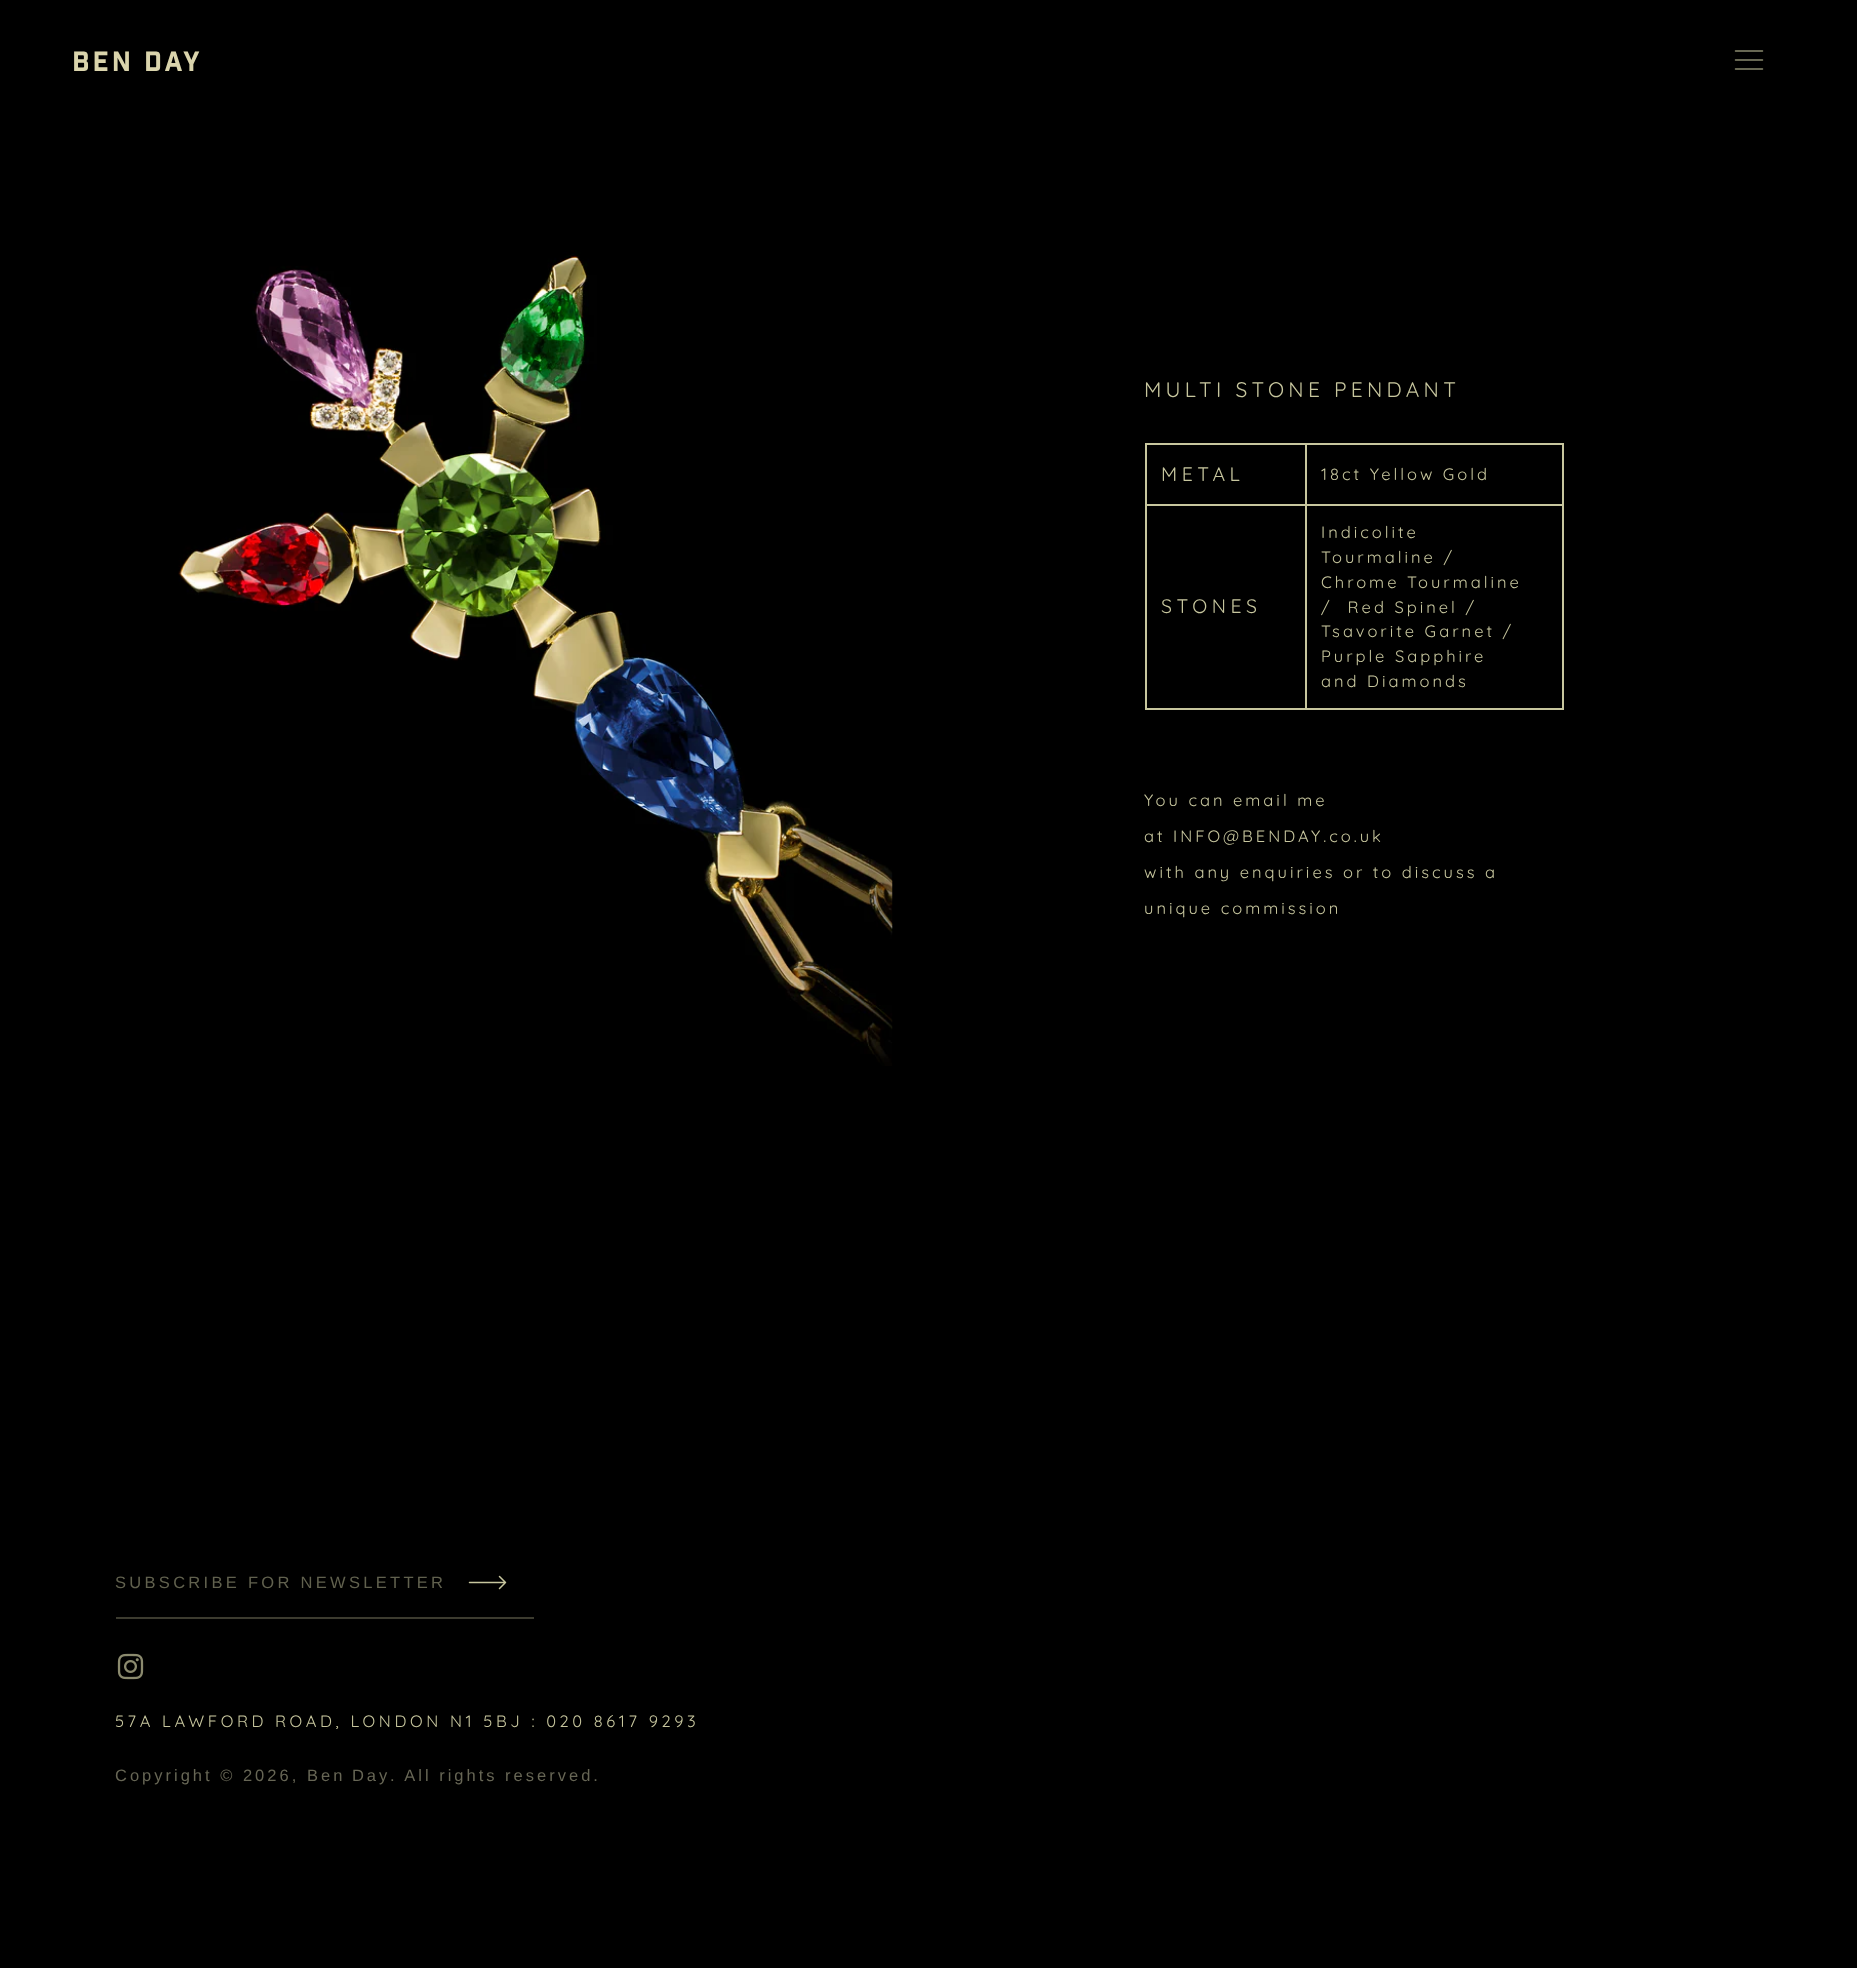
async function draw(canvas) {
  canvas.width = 1857;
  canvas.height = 1968;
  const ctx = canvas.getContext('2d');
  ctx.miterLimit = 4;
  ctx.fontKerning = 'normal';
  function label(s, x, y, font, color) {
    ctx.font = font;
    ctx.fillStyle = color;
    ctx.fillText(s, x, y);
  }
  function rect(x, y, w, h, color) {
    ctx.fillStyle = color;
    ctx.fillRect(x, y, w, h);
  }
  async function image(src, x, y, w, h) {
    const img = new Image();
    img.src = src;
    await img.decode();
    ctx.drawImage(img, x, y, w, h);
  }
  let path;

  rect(0, 0, 1857, 1968, '#000');
  ctx.letterSpacing = '3px';
  label('BEN DAY', 72, 71, '27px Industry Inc', '#dad4ac');
  path = new Path2D('M1735.5 60H1762.5M1735.5 51H1762.5M1735.5 69H1762.5');
  ctx.strokeStyle = '#8b8b6f';
  ctx.lineWidth = 1.5;
  ctx.lineCap = 'round';
  ctx.lineJoin = 'round';
  ctx.stroke(path);
  await image('assets/img1.png', 178, 250, 715, 816);
  ctx.letterSpacing = '4.25px';
  label('MULTI STONE PENDANT', 1144, 397, '21px Quicksand', '#c7c69e');
  rect(1145, 443, 418, 2, '#c7c69e');
  rect(1562, 443, 2, 267, '#c7c69e');
  rect(1145, 708, 418, 2, '#c7c69e');
  rect(1145, 443, 2, 267, '#c7c69e');
  ctx.letterSpacing = '4.5px';
  label('METAL', 1161, 481, '19.5px Quicksand', '#c7c69e');
  rect(1305, 504, 258, 2, '#c7c69e');
  rect(1305, 504, 2, 206, '#c7c69e');
  rect(1145, 504, 162, 2, '#c7c69e');
  rect(1305, 443, 2, 63, '#c7c69e');
  ctx.letterSpacing = '3px';
  label('18ct Yellow Gold', 1321, 480, '16.5px Quicksand', '#c7c69e');
  ctx.letterSpacing = '4.5px';
  label('STONES', 1161, 613, '19.5px Quicksand', '#c7c69e');
  ctx.letterSpacing = '3px';
  label('Indicolite', 1321, 538, '16.5px Quicksand', '#c7c69e');
  label('Tourmaline /', 1321, 563, '16.5px Quicksand', '#c7c69e');
  label('Chrome Tourmaline', 1321, 588, '16.5px Quicksand', '#c7c69e');
  label('/  Red Spinel /', 1321, 613, '16.5px Quicksand', '#c7c69e');
  label('Tsavorite Garnet /', 1321, 637, '16.5px Quicksand', '#c7c69e');
  label('Purple Sapphire', 1321, 662, '16.5px Quicksand', '#c7c69e');
  label('and Diamonds', 1321, 687, '16.5px Quicksand', '#c7c69e');
  label('You can email me', 1144, 806, '16.5px Quicksand', '#c7c69e');
  label('at INFO@BENDAY.co.uk', 1144, 842, '16.5px Quicksand', '#c7c69e');
  label('with any enquiries or to discuss a', 1144, 878, '16.5px Quicksand', '#c7c69e');
  label('unique commission', 1144, 914, '16.5px Quicksand', '#c7c69e');
  rect(116, 1617, 418, 2, '#3c3b2f');
  ctx.letterSpacing = '3.3px';
  label('SUBSCRIBE FOR NEWSLETTER', 115, 1588, '16.5px Liberation Sans', '#61614e');
  path = new Path2D('M499.5 1588.5L505.5 1582.5L499.5 1576.5M469.5 1582.5H505.5');
  ctx.strokeStyle = '#c7c69e';
  ctx.stroke(path);
  await image('assets/img2.png', 117, 1653, 27, 27);
  ctx.letterSpacing = '3.6px';
  label('57A LAWFORD ROAD, LONDON N1 5BJ : 020 8617 9293', 115, 1727, '16.5px Quicksand', '#c7c69e');
  ctx.letterSpacing = '3px';
  label('Copyright © 2026,', 115, 1781, '16.5px Liberation Sans', '#676655');
  ctx.wordSpacing = '-1px';
  label('Ben Day', 307, 1781, '16.5px Liberation Sans', '#676655');
  ctx.wordSpacing = '0px';
  label('. All rights reserved.', 390, 1781, '16.5px Liberation Sans', '#676655');
}

draw(document.querySelector('canvas'));
